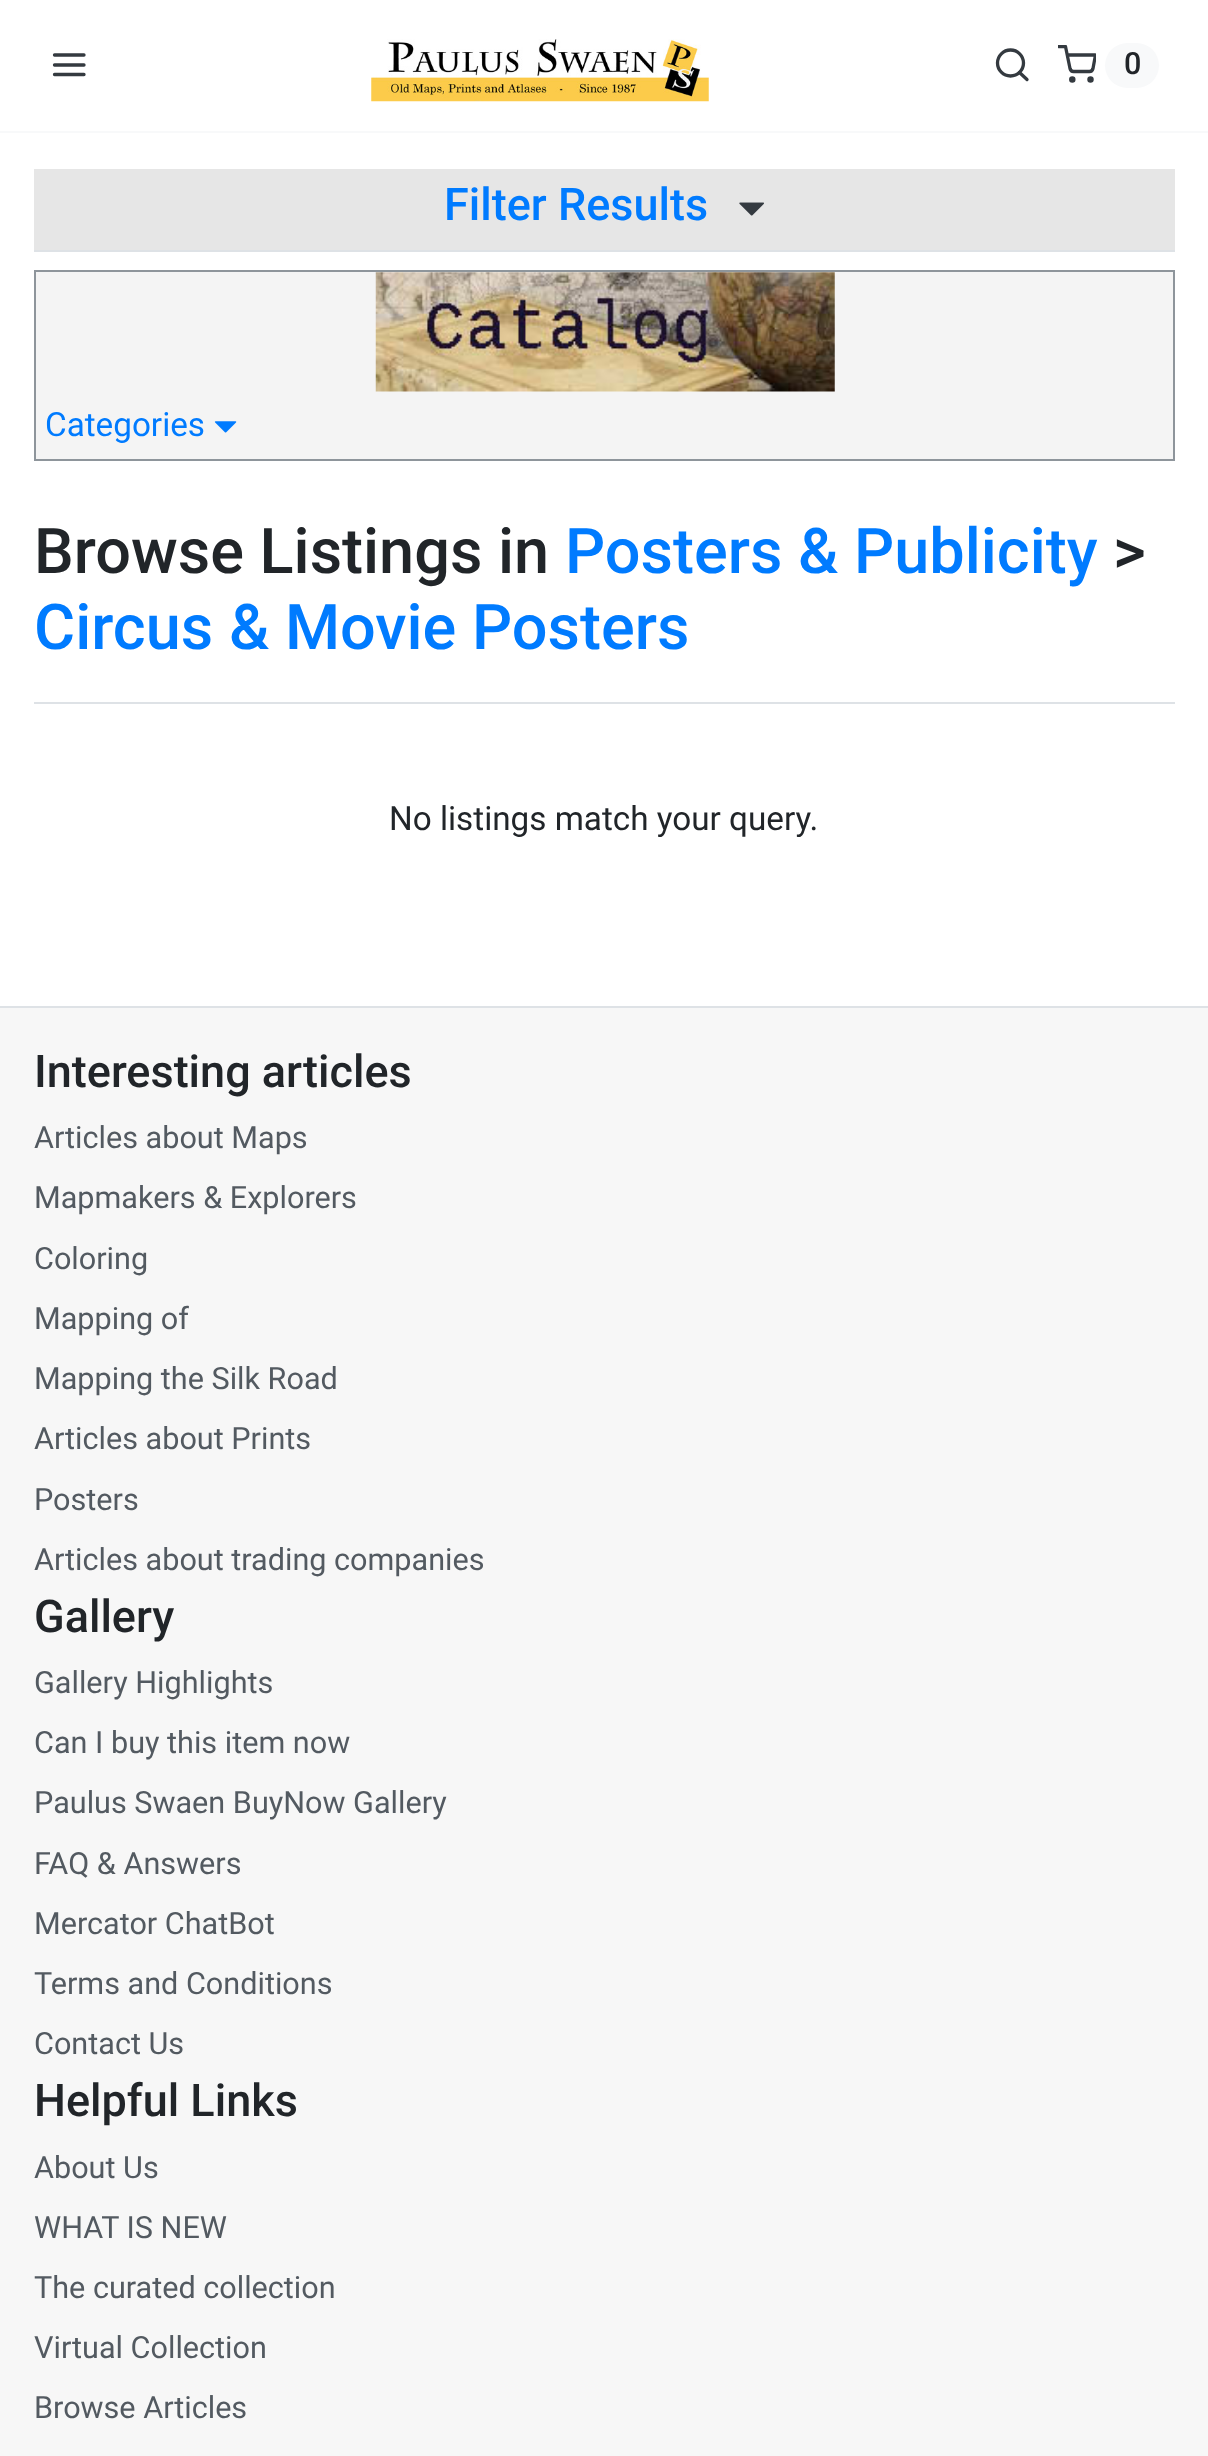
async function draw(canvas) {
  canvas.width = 1208;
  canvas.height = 2456;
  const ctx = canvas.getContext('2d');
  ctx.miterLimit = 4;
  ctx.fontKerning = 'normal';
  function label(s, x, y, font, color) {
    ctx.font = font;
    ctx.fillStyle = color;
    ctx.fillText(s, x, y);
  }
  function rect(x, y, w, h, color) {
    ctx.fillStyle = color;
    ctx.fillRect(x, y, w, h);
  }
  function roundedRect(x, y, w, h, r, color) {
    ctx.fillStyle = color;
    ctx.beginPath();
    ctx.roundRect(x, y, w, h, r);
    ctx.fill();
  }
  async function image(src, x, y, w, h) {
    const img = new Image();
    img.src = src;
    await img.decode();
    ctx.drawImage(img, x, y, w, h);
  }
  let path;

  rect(0, 0, 1208, 2456, '#fff');
  rect(0, 131, 1208, 2, '#f8f9fa');
  path = new Path2D('M54.5 65H84M54.5 55H84M54.5 74.5H84');
  ctx.strokeStyle = '#343a40';
  ctx.lineWidth = 3.3;
  ctx.lineCap = 'round';
  ctx.lineJoin = 'round';
  ctx.stroke(path);
  await image('assets/img1.png', 371, 39, 338, 63);
  ctx.beginPath();
  ctx.arc(1010.5, 63, 13, 0, 2 * Math.PI);
  ctx.stroke();
  path = new Path2D('M1027 79.5L1019.5 72.5');
  ctx.stroke(path);
  ctx.save();
  ctx.beginPath();
  ctx.rect(1058, 45, 38, 41);
  ctx.clip();
  path = new Path2D('M1059 46.5H1065.5L1070 68.5C1070.5 70.5 1072 71.5 1073.5 71.5H1089.5C1091 71.5 1092.5 70.5 1093 68.5L1095.5 55H1067.5');
  ctx.stroke(path);
  ctx.restore();
  roundedRect(1105, 43, 54, 45, 22.5, '#f8f9fa');
  label('0', 1124, 74, '500 30.6px Roboto', '#212529');
  ctx.beginPath();
  ctx.arc(1072.3, 79.6, 1.6, 0, 2 * Math.PI);
  ctx.stroke();
  ctx.beginPath();
  ctx.arc(1090.5, 79.6, 1.6, 0, 2 * Math.PI);
  ctx.stroke();
  rect(34, 169, 1141, 81, '#e6e6e6');
  rect(34, 250, 1141, 2, '#dee2e6');
  label('Filter Results', 444, 220, '500 45px Roboto', '#007bff');
  await image('assets/img2.png', 739, 202, 25, 14);
  ctx.fillStyle = '#f4f4f4';
  ctx.beginPath();
  ctx.rect(35, 271, 1139, 189);
  ctx.fill();
  ctx.strokeStyle = '#8e959b';
  ctx.lineWidth = 2;
  ctx.lineJoin = 'miter';
  ctx.stroke();
  await image('assets/img3.png', 375, 272, 460, 120);
  label('Categories', 45, 436, '33.25px Roboto', '#007bff');
  await image('assets/img4.png', 214, 421, 23, 12);
  rect(34, 702, 1141, 2, '#dee2e6');
  label('Browse Listings in', 34, 573, '500 63px Roboto', '#212529');
  label('Posters & Publicity', 565, 573, '500 63px Roboto', '#007bff');
  label('>', 1113, 573, '500 63px Roboto', '#212529');
  label('Circus & Movie Posters', 34, 649, '500 63px Roboto', '#007bff');
  label('No listings match your query.', 389, 830, '33.25px Roboto', '#212529');
  rect(0, 1008, 1208, 1448, '#f7f7f7');
  rect(0, 1006, 1208, 2, '#dee2e6');
  label('Interesting articles', 34, 1087, '500 45px Roboto', '#212529');
  label('Articles about Maps', 34, 1148, '30.6px Roboto', '#535a61');
  label('Mapmakers & Explorers', 34, 1208, '30.6px Roboto', '#535a61');
  label('Coloring', 34, 1269, '30.6px Roboto', '#535a61');
  label('Mapping of', 34, 1329, '30.6px Roboto', '#535a61');
  label('Mapping the Silk Road', 34, 1389, '30.6px Roboto', '#535a61');
  label('Articles about Prints', 34, 1449, '30.6px Roboto', '#535a61');
  label('Posters', 34, 1510, '30.6px Roboto', '#535a61');
  label('Articles about trading companies', 34, 1570, '30.6px Roboto', '#535a61');
  label('Gallery', 34, 1632, '500 45px Roboto', '#212529');
  label('Gallery Highlights', 34, 1693, '30.6px Roboto', '#535a61');
  label('Can I buy this item now', 34, 1753, '30.6px Roboto', '#535a61');
  label('Paulus Swaen BuyNow Gallery', 34, 1813, '30.6px Roboto', '#535a61');
  label('FAQ & Answers', 34, 1874, '30.6px Roboto', '#535a61');
  label('Mercator ChatBot', 34, 1934, '30.6px Roboto', '#535a61');
  label('Terms and Conditions', 34, 1994, '30.6px Roboto', '#535a61');
  label('Contact Us', 34, 2054, '30.6px Roboto', '#535a61');
  label('Helpful Links', 34, 2116, '500 45px Roboto', '#212529');
  label('About Us', 34, 2178, '30.6px Roboto', '#535a61');
  label('WHAT IS NEW', 34, 2238, '30.6px Roboto', '#535a61');
  label('The curated collection', 34, 2298, '30.6px Roboto', '#535a61');
  label('Virtual Collection', 34, 2358, '30.6px Roboto', '#535a61');
  label('Browse Articles', 34, 2418, '30.6px Roboto', '#535a61');
}

draw(document.querySelector('canvas'));
